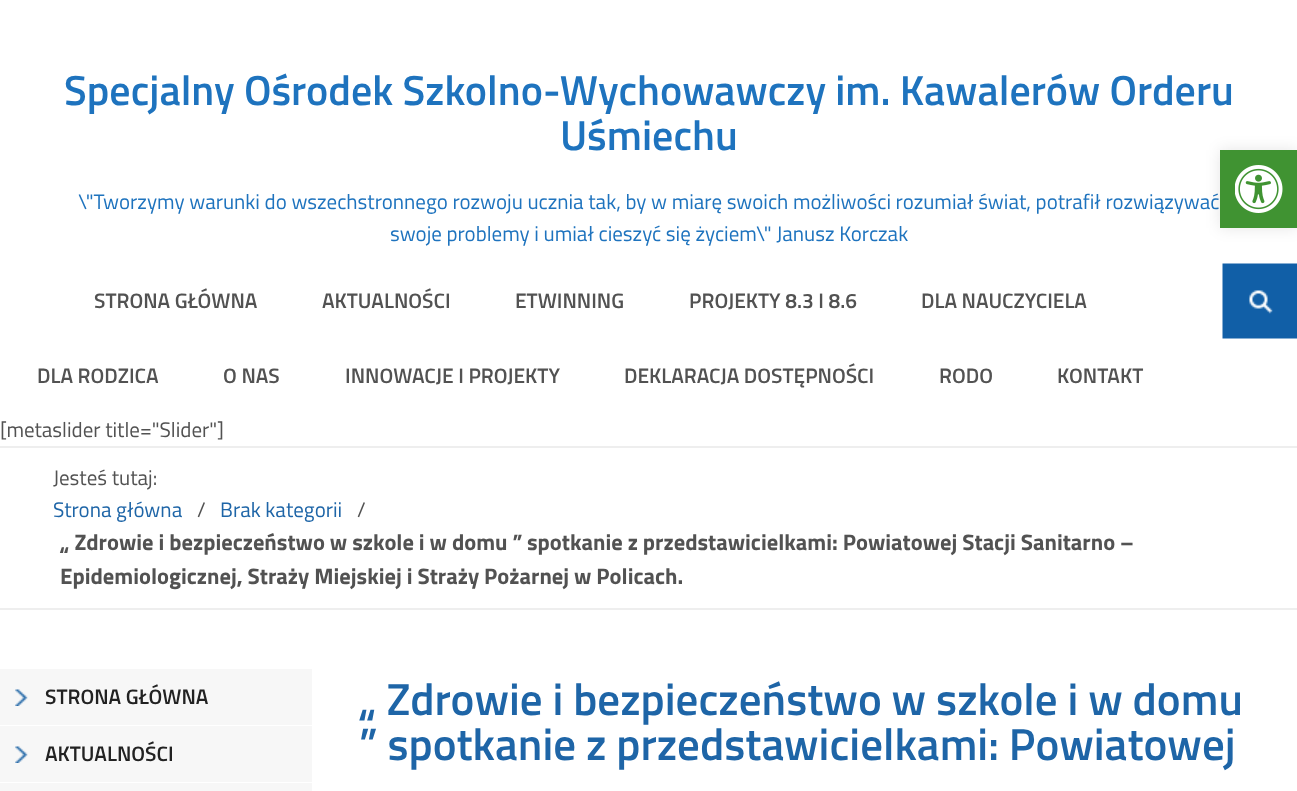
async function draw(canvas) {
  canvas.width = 1297;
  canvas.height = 791;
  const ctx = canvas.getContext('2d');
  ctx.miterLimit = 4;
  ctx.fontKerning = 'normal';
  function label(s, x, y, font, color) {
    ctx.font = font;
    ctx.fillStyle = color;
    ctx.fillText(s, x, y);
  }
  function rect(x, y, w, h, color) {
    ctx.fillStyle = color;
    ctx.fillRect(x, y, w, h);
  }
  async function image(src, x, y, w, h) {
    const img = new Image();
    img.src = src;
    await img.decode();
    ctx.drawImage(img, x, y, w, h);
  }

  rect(0, 0, 1297, 791, '#fff');
  label('Specjalny Ośrodek Szkolno-Wychowawczy im. Kawalerów Orderu', 64, 105, '600 42px Titillium Web', '#1e73be');
  label('Uśmiechu', 560, 150, '600 42px Titillium Web', '#1e73be');
  label('\\"Tworzymy warunki do wszechstronnego rozwoju ucznia tak, by w miarę swoich możliwości rozumiał świat, potrafił rozwiązywać', 78, 209, '21px Titillium Web', '#1e73be');
  label('swoje problemy i umiał cieszyć się życiem\\" Janusz Korczak', 390, 241, '21px Titillium Web', '#1e73be');
  label('STRONA GŁÓWNA', 94, 308, '600 21px Titillium Web', '#525252');
  label('AKTUALNOŚCI', 322, 308, '600 21px Titillium Web', '#525252');
  label('ETWINNING', 515, 308, '600 21px Titillium Web', '#525252');
  label('PROJEKTY 8.3 I 8.6', 689, 308, '600 21px Titillium Web', '#525252');
  label('DLA NAUCZYCIELA', 921, 308, '600 21px Titillium Web', '#525252');
  label('DLA RODZICA', 37, 383, '600 21px Titillium Web', '#525252');
  label('O NAS', 223, 383, '600 21px Titillium Web', '#525252');
  label('INNOWACJE I PROJEKTY', 345, 383, '600 21px Titillium Web', '#525252');
  label('DEKLARACJA DOSTĘPNOŚCI', 624, 383, '600 21px Titillium Web', '#525252');
  label('RODO', 939, 383, '600 21px Titillium Web', '#525252');
  label('KONTAKT', 1057, 383, '600 21px Titillium Web', '#525252');
  await image('assets/img1.png', 1222, 263, 75, 76);
  label('[metaslider title="Slider"]', 0, 437, '21px Titillium Web', '#525252');
  rect(0, 446, 1297, 2, '#eee');
  rect(0, 608, 1297, 2, '#eee');
  label('Jesteś tutaj:', 53, 485, '21px Titillium Web', '#525252');
  label('Strona główna', 53, 517, '21px Titillium Web', '#1e65a7');
  label('/', 197, 517, '21px Titillium Web', '#525252');
  label('Brak kategorii', 220, 517, '21px Titillium Web', '#1e65a7');
  label('/', 357, 517, '21px Titillium Web', '#525252');
  label('„ Zdrowie i bezpieczeństwo w szkole i w domu ”', 60, 550, 'bold 22.5px Titillium Web', '#525252');
  label('spotkanie z przedstawicielkami: Powiatowej Stacji Sanitarno –', 527, 550, 'bold 22.5px Titillium Web', '#525252');
  label('Epidemiologicznej, Straży Miejskiej i Straży Pożarnej w Policach.', 60, 584, 'bold 22.5px Titillium Web', '#525252');
  rect(0, 669, 312, 56, '#f7f7f7');
  await image('assets/img2.png', 15, 689, 13, 17);
  label('STRONA GŁÓWNA', 45, 704, '600 21px Titillium Web', '#222');
  rect(0, 726, 312, 56, '#f7f7f7');
  await image('assets/img2.png', 15, 746, 13, 17);
  label('AKTUALNOŚCI', 45, 761, '600 21px Titillium Web', '#222');
  rect(0, 783, 312, 8, '#f7f7f7');
  label('„ Zdrowie i bezpieczeństwo w szkole i w domu', 359, 715, '600 45px Titillium Web', '#1e65a7');
  label('” spotkanie z przedstawicielkami: Powiatowej', 359, 760, '600 45px Titillium Web', '#1e65a7');
  ctx.fillStyle = '#0000001a';
  ctx.filter = 'blur(7.5px)';
  ctx.beginPath();
  ctx.rect(1220, 150, 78, 78);
  ctx.fill();
  ctx.filter = 'none';
  rect(1220, 150, 77, 78, '#409332');
  await image('assets/img3.png', 1235, 165, 48, 48);
}

draw(document.querySelector('canvas'));
